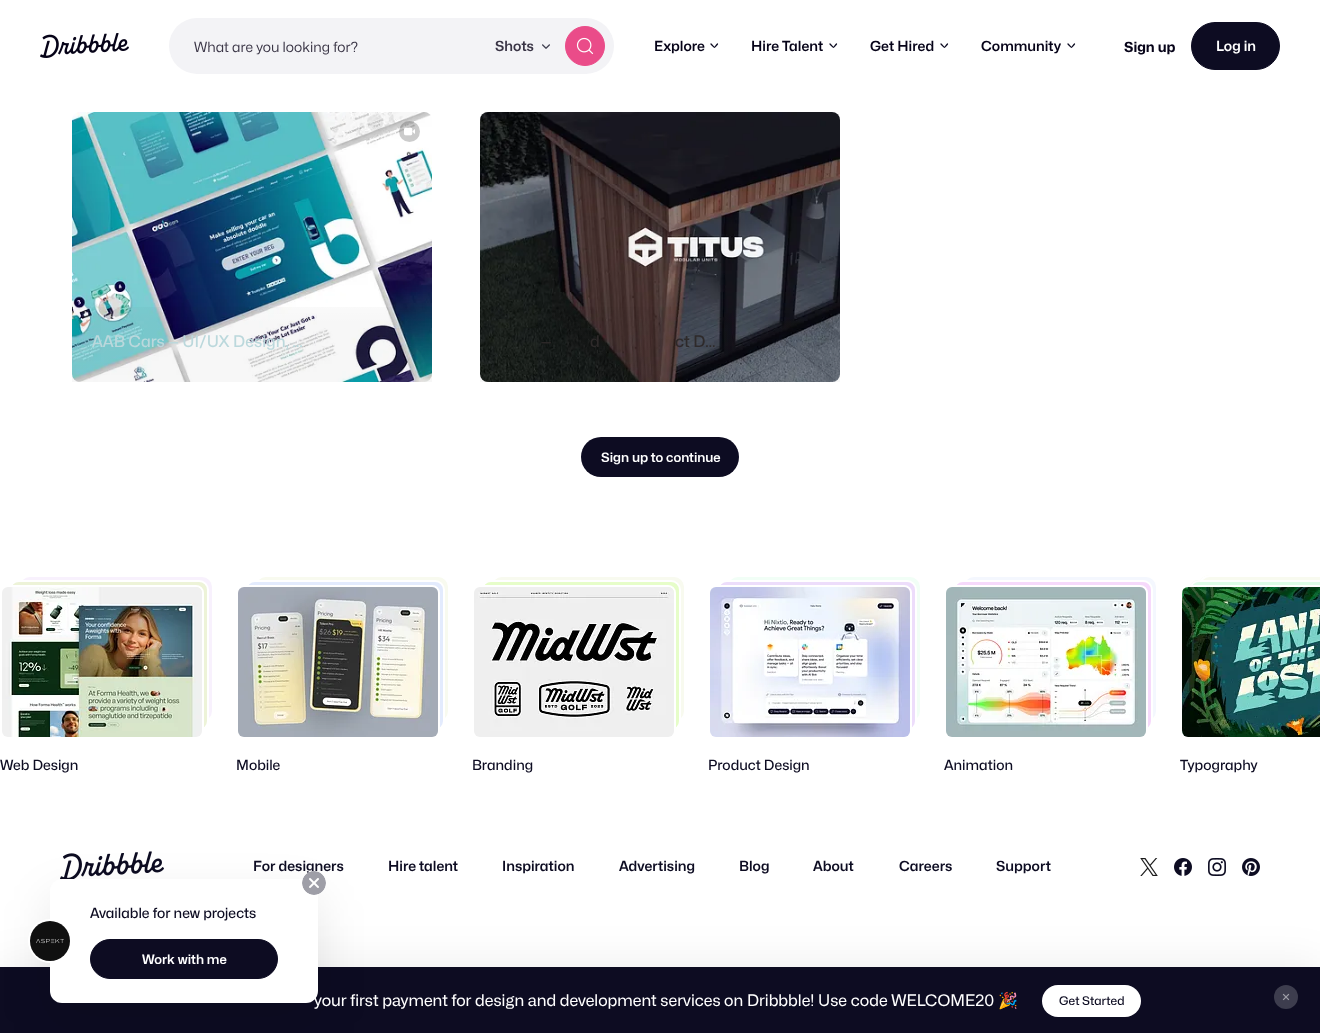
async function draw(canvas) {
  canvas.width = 1320;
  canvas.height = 1033;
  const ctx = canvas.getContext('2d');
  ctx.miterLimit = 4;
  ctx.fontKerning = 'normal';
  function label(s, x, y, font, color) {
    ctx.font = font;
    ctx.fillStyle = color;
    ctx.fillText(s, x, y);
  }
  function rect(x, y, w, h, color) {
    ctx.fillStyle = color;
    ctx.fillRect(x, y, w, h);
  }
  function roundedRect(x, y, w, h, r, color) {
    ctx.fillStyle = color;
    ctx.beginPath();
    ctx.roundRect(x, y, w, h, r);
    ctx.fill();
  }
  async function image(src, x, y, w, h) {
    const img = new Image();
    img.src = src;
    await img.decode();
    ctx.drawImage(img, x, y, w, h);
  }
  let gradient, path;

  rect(0, 0, 1320, 1033, '#fff');
  await image('assets/img1.png', 40, 33, 89, 25);
  roundedRect(169, 18, 445, 56, 28, '#f3f3f6');
  label('What are you looking for?', 194, 52, '14px Mona Sans', '#3a3546');
  label('Shots', 495, 51, '600 14px Mona Sans', '#3a3546');
  await image('assets/img2.png', 542, 44, 8, 5);
  ctx.fillStyle = '#ea4c89';
  ctx.beginPath();
  ctx.arc(585, 46, 19.5, 0, 2 * Math.PI);
  ctx.fill();
  ctx.strokeStyle = '#ea4c89';
  ctx.stroke();
  await image('assets/img3.png', 576, 37, 18, 18);
  label('Explore', 654, 51, '600 14px Mona Sans', '#060318');
  path = new Path2D('M717.5 44C713.5 48.5 715.5 48.5 711 44');
  ctx.strokeStyle = '#0d0c22';
  ctx.lineWidth = 1.3;
  ctx.lineCap = 'round';
  ctx.lineJoin = 'round';
  ctx.stroke(path);
  label('Hire Talent', 751, 51, '600 14px Mona Sans', '#060318');
  path = new Path2D('M836.5 44C832.5 48.5 834.5 48.5 830 44');
  ctx.stroke(path);
  label('Get Hired', 870, 51, '600 14px Mona Sans', '#060318');
  path = new Path2D('M947.5 44C943.5 48.5 945.5 48.5 941 44');
  ctx.stroke(path);
  label('Community', 981, 51, '600 14px Mona Sans', '#060318');
  path = new Path2D('M1074.5 44C1070.5 48.5 1072.5 48.5 1068 44');
  ctx.stroke(path);
  label('Sign up', 1124, 52, 'bold 14px Mona Sans', '#060318');
  ctx.fillStyle = '#0d0c22';
  ctx.beginPath();
  ctx.roundRect(1191.5, 22.5, 88, 47, 23.5);
  ctx.fill();
  ctx.lineWidth = 1;
  ctx.lineJoin = 'miter';
  ctx.stroke();
  label('Log in', 1216, 51, '600 14px Mona Sans', '#fff');
  await image('assets/img4.png', 72, 112, 360, 270);
  ctx.fillStyle = '#00000033';
  ctx.beginPath();
  ctx.arc(409.5, 131.5, 10.5, 0, 2 * Math.PI);
  ctx.fill();
  await image('assets/img5.png', 404, 127, 11, 9);
  gradient = ctx.createLinearGradient(252, 112, 252, 382);
  gradient.addColorStop(0, '#00000000');
  gradient.addColorStop(0.15, '#00000000');
  gradient.addColorStop(0.23, '#00000000');
  gradient.addColorStop(0.29, '#00000000');
  gradient.addColorStop(0.35, '#00000003');
  gradient.addColorStop(0.41, '#00000003');
  gradient.addColorStop(0.47, '#00000005');
  gradient.addColorStop(0.53, '#00000005');
  gradient.addColorStop(0.59, '#00000005');
  gradient.addColorStop(0.65, '#00000005');
  gradient.addColorStop(0.71, '#00000005');
  gradient.addColorStop(0.78, '#00000008');
  gradient.addColorStop(0.84, '#00000008');
  gradient.addColorStop(0.92, '#00000008');
  gradient.addColorStop(1, '#00000008');
  ctx.fillStyle = gradient;
  ctx.fillRect(72, 307, 360, 75);
  label('AAB Cars — UI/UX Design, …', 92, 347, '500 16px Mona Sans', '#bbd8dc');
  await image('assets/img6.png', 480, 112, 360, 270);
  gradient = ctx.createLinearGradient(660, 112, 660, 382);
  gradient.addColorStop(0, '#00000000');
  gradient.addColorStop(0.15, '#00000000');
  gradient.addColorStop(0.23, '#00000000');
  gradient.addColorStop(0.29, '#00000000');
  gradient.addColorStop(0.35, '#00000003');
  gradient.addColorStop(0.41, '#00000003');
  gradient.addColorStop(0.47, '#00000005');
  gradient.addColorStop(0.53, '#00000005');
  gradient.addColorStop(0.59, '#00000005');
  gradient.addColorStop(0.65, '#00000005');
  gradient.addColorStop(0.71, '#00000005');
  gradient.addColorStop(0.78, '#00000008');
  gradient.addColorStop(0.84, '#00000008');
  gradient.addColorStop(0.92, '#00000008');
  gradient.addColorStop(1, '#00000008');
  ctx.fillStyle = gradient;
  ctx.fillRect(480, 307, 360, 75);
  label('—', 541, 347, '500 16px Mona Sans', '#2e2a2a');
  label('d', 590, 347, '500 16px Mona Sans', '#2e2a2a');
  label('ct D…', 675, 347, '500 16px Mona Sans', '#2e2a2a');
  roundedRect(581, 437, 158, 40, 20, '#0d0c22');
  label('Sign up to continue', 601, 462, '600 13px Mona Sans', '#fff');
  await image('assets/img15.png', 60, 851, 104, 29);
  ctx.fillStyle = '#0000000f';
  ctx.filter = 'blur(20px)';
  ctx.beginPath();
  ctx.rect(0, 961, 1320, 66);
  ctx.fill();
  ctx.filter = 'none';
  rect(0, 967, 1320, 66, '#0d0c22');
  ctx.fillStyle = '#0000001a';
  ctx.filter = 'blur(24px)';
  ctx.beginPath();
  ctx.roundRect(50, 899, 268, 124, 12);
  ctx.fill();
  ctx.filter = 'none';
  roundedRect(50, 879, 268, 124, 12, '#fff');
  label('For designers', 253, 871, '600 14px Mona Sans', '#0d0c22');
  ctx.fillStyle = '#fff';
  ctx.beginPath();
  ctx.arc(314, 883, 12, 0, 2 * Math.PI);
  ctx.fill();
  await image('assets/img7.png', 302, 871, 24, 24);
  label('Available for new projects', 90, 918, '500 14px Mona Sans', '#0d0c22');
  ctx.beginPath();
  ctx.arc(50, 941, 21, 0, 2 * Math.PI);
  ctx.strokeStyle = '#fff';
  ctx.lineWidth = 2;
  ctx.stroke();
  ctx.fillStyle = '#fdfcfb';
  ctx.beginPath();
  ctx.arc(50, 941, 20, 0, 2 * Math.PI);
  ctx.fill();
  await image('assets/img8.png', 30, 921, 40, 40);
  ctx.fillStyle = '#0d0c22';
  ctx.beginPath();
  ctx.roundRect(90.5, 939.5, 187, 39, 19.5);
  ctx.fill();
  ctx.strokeStyle = '#0d0c22';
  ctx.lineWidth = 1;
  ctx.stroke();
  label('Work with me', 142, 964, '600 13px Mona Sans', '#fff');
  ctx.fillStyle = '#f8f1fd';
  ctx.beginPath();
  ctx.roundRect(19, 576, 194, 146, 11);
  ctx.fill();
  ctx.strokeStyle = '#fff';
  ctx.lineWidth = 2;
  ctx.stroke();
  ctx.fillStyle = '#edf3d8';
  ctx.beginPath();
  ctx.roundRect(10, 581, 198, 149, 9);
  ctx.fill();
  ctx.stroke();
  ctx.beginPath();
  ctx.roundRect(1, 586, 202, 152, 7);
  ctx.stroke();
  await image('assets/img9.png', 2, 587, 200, 150);
  label('Web Design', 0, 770, '500 14px Mona Sans', '#0d0c22');
  ctx.fillStyle = '#f8faef';
  ctx.beginPath();
  ctx.roundRect(255, 576, 194, 146, 11);
  ctx.fill();
  ctx.stroke();
  ctx.fillStyle = '#e3ebfd';
  ctx.beginPath();
  ctx.roundRect(246, 581, 198, 149, 9);
  ctx.fill();
  ctx.stroke();
  ctx.beginPath();
  ctx.roundRect(237, 586, 202, 152, 7);
  ctx.stroke();
  await image('assets/img10.png', 238, 587, 200, 150);
  label('Mobile', 236, 770, '500 14px Mona Sans', '#0d0c22');
  ctx.fillStyle = '#f8faef';
  ctx.beginPath();
  ctx.roundRect(491, 576, 194, 146, 11);
  ctx.fill();
  ctx.stroke();
  ctx.fillStyle = '#e6fdc9';
  ctx.beginPath();
  ctx.roundRect(482, 581, 198, 149, 9);
  ctx.fill();
  ctx.stroke();
  ctx.beginPath();
  ctx.roundRect(473, 586, 202, 152, 7);
  ctx.stroke();
  await image('assets/img11.png', 474, 587, 200, 150);
  label('Branding', 472, 770, '500 14px Mona Sans', '#0d0c22');
  ctx.fillStyle = '#f1fef6';
  ctx.beginPath();
  ctx.roundRect(727, 576, 194, 146, 11);
  ctx.fill();
  ctx.stroke();
  ctx.fillStyle = '#edddfb';
  ctx.beginPath();
  ctx.roundRect(718, 581, 198, 149, 9);
  ctx.fill();
  ctx.stroke();
  ctx.beginPath();
  ctx.roundRect(709, 586, 202, 152, 7);
  ctx.stroke();
  await image('assets/img12.png', 710, 587, 200, 150);
  label('Product Design', 708, 770, '500 14px Mona Sans', '#0d0c22');
  ctx.fillStyle = '#f4f7fe';
  ctx.beginPath();
  ctx.roundRect(963, 576, 194, 146, 11);
  ctx.fill();
  ctx.stroke();
  ctx.fillStyle = '#f6d9fb';
  ctx.beginPath();
  ctx.roundRect(954, 581, 198, 149, 9);
  ctx.fill();
  ctx.stroke();
  ctx.beginPath();
  ctx.roundRect(945, 586, 202, 152, 7);
  ctx.stroke();
  await image('assets/img13.png', 946, 587, 200, 150);
  label('Animation', 944, 770, '500 14px Mona Sans', '#0d0c22');
  ctx.fillStyle = '#f8faef';
  ctx.beginPath();
  ctx.roundRect(1198, 575, 122, 148, [12, 0, 0, 12]);
  ctx.fill();
  ctx.beginPath();
  ctx.roundRect(1199, 576, 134, 146, 11);
  ctx.stroke();
  ctx.fillStyle = '#ddfde8';
  ctx.beginPath();
  ctx.roundRect(1189, 580, 131, 151, [10, 0, 0, 10]);
  ctx.fill();
  ctx.beginPath();
  ctx.roundRect(1190, 581, 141, 149, 9);
  ctx.stroke();
  ctx.beginPath();
  ctx.roundRect(1181, 586, 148, 152, 7);
  ctx.stroke();
  await image('assets/img14.png', 1182, 587, 138, 150);
  label('Typography', 1180, 770, '500 14px Mona Sans', '#0d0c22');
  label('Hire talent', 388, 871, '600 14px Mona Sans', '#0d0c22');
  label('Inspiration', 502, 871, '600 14px Mona Sans', '#0d0c22');
  label('Advertising', 619, 871, '600 14px Mona Sans', '#0d0c22');
  label('Blog', 739, 871, '600 14px Mona Sans', '#0d0c22');
  label('About', 813, 871, '600 14px Mona Sans', '#0d0c22');
  label('Careers', 899, 871, '600 14px Mona Sans', '#0d0c22');
  label('Support', 996, 871, '600 14px Mona Sans', '#0d0c22');
  await image('assets/img16.png', 1140, 858, 18, 18);
  await image('assets/img17.png', 1174, 858, 18, 18);
  await image('assets/img18.png', 1208, 858, 18, 18);
  await image('assets/img19.png', 1242, 858, 18, 18);
  label('your first payment for design and development services on Dribbble! Use code WELCOME20', 314, 1006, '16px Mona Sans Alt', '#fff');
  label('🎉', 998, 1006, '16px Noto Color Emoji', '#fff');
  roundedRect(1042, 985, 99, 32, 16, '#fff');
  label('Get Started', 1059, 1005, '500 12px Mona Sans', '#0d0c22');
  ctx.fillStyle = '#3d3d4e';
  ctx.beginPath();
  ctx.arc(1286, 997, 12, 0, 2 * Math.PI);
  ctx.fill();
  await image('assets/img20.png', 1282, 993, 8, 8);
}

draw(document.querySelector('canvas'));
